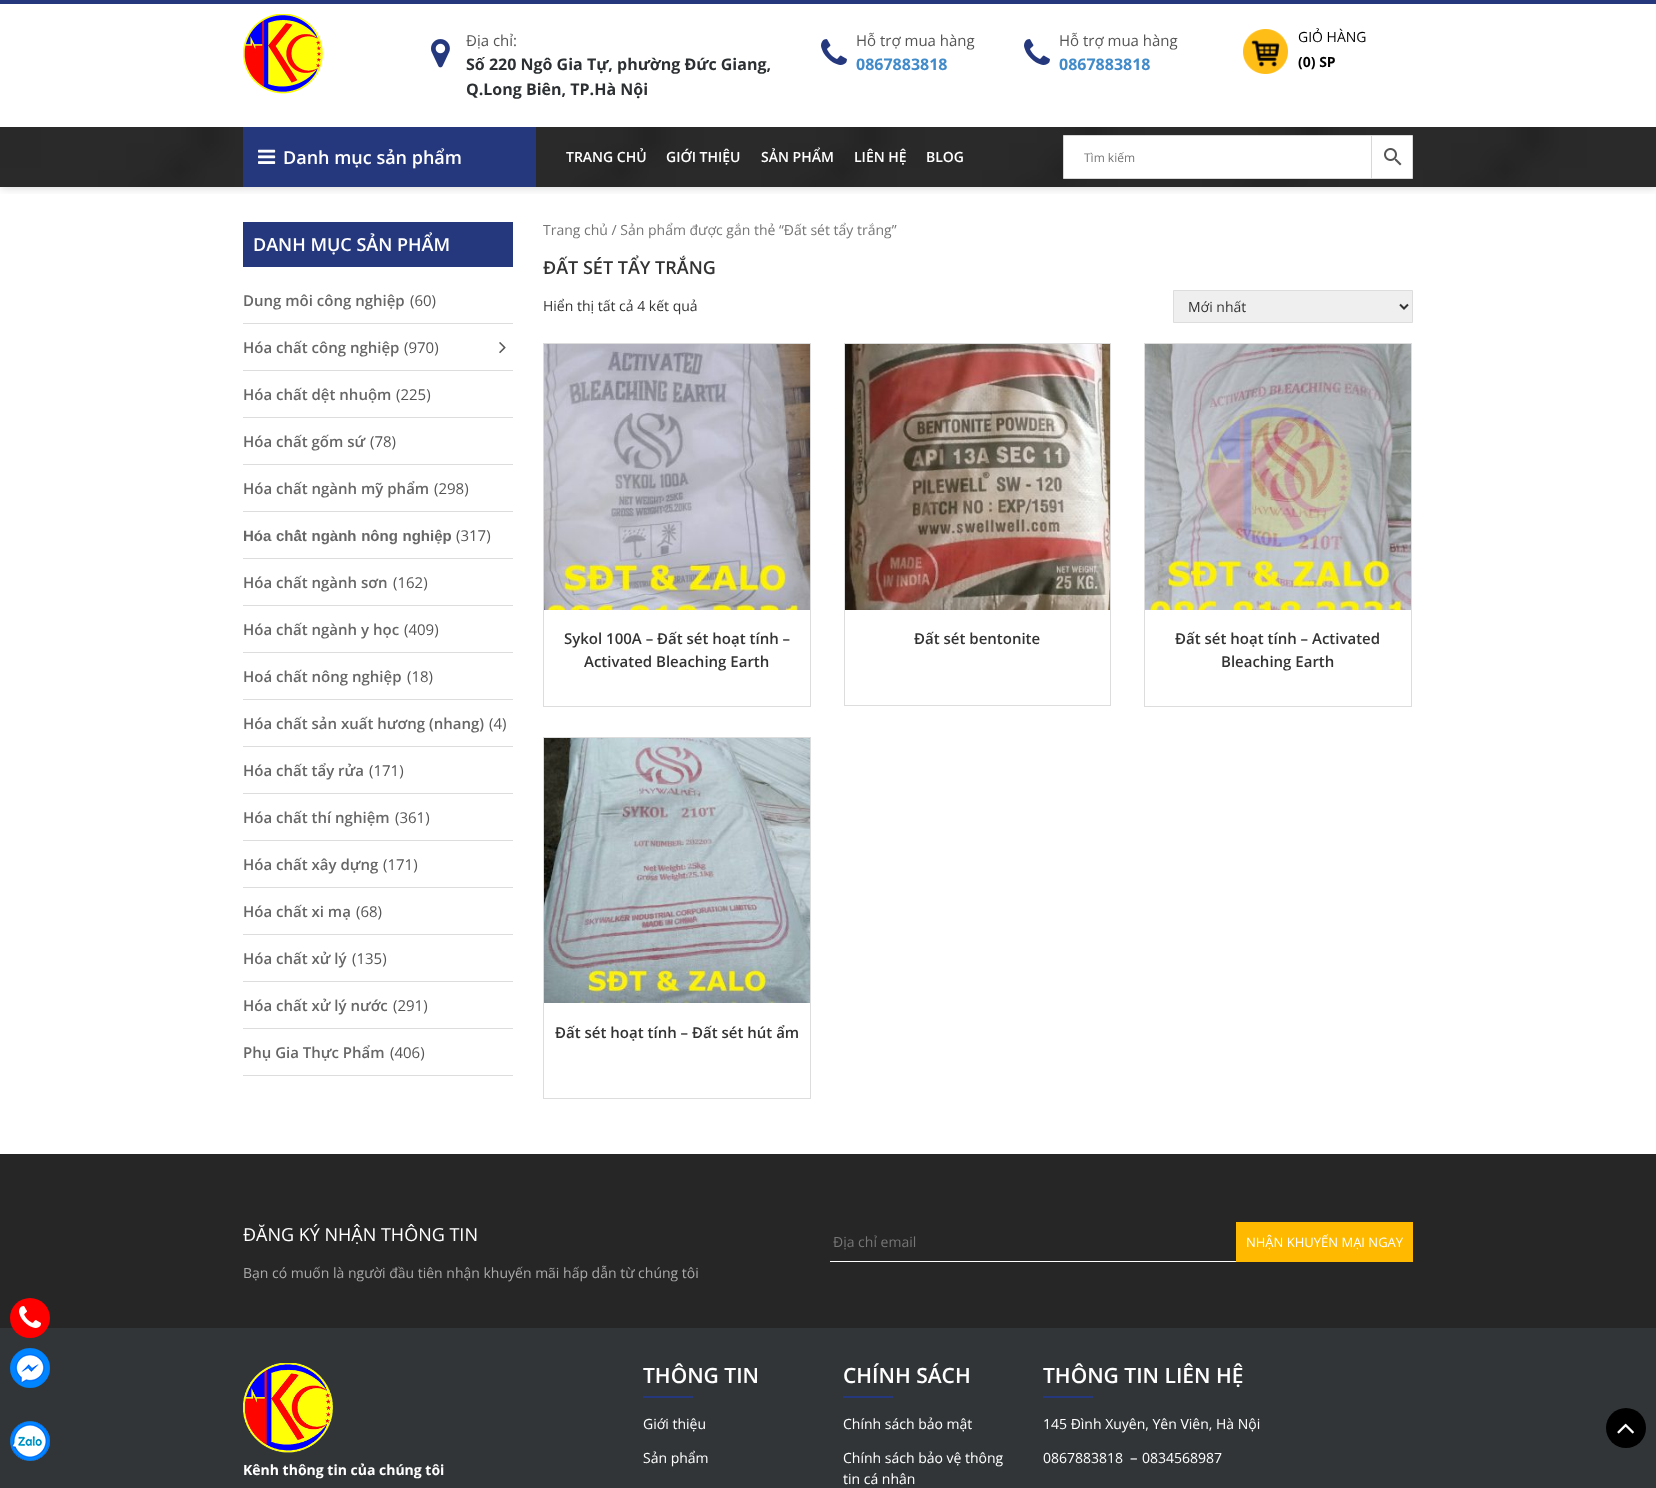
async function draw(canvas) {
  canvas.width = 1656;
  canvas.height = 1488;
  const ctx = canvas.getContext('2d');
  ctx.miterLimit = 4;
  ctx.fontKerning = 'normal';
  function label(s, x, y, font, color) {
    ctx.font = font;
    ctx.fillStyle = color;
    ctx.fillText(s, x, y);
  }
  function rect(x, y, w, h, color) {
    ctx.fillStyle = color;
    ctx.fillRect(x, y, w, h);
  }
  async function image(src, x, y, w, h) {
    const img = new Image();
    img.src = src;
    await img.decode();
    ctx.drawImage(img, x, y, w, h);
  }
  let path;

  rect(0, 0, 1656, 1488, '#fff');
  ctx.save();
  ctx.beginPath();
  ctx.rect(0, 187, 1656, 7);
  ctx.clip();
  ctx.fillStyle = '#00000029';
  ctx.filter = 'blur(5px)';
  ctx.beginPath();
  ctx.rect(1, -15, 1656, 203);
  ctx.fill();
  ctx.filter = 'none';
  ctx.restore();
  rect(0, 0, 1656, 4, '#25387e');
  await image('assets/img1.png', 243, 14, 80, 80);
  await image('assets/img2.png', 431, 39, 19, 29);
  label('Địa chỉ:', 466, 46, '15px Open Sans', '#555');
  label('Số 220 Ngô Gia Tự, phường Đức Giang,', 466, 70, 'bold 16px Open Sans', '#2d3032');
  label('Q.Long Biên, TP.Hà Nội', 466, 95, 'bold 16px Open Sans', '#2d3032');
  await image('assets/img3.png', 821, 39, 26, 26);
  label('Hỗ trợ mua hàng', 856, 46, '15px Open Sans', '#555');
  label('0867883818', 856, 70, 'bold 16px Open Sans', '#428bca');
  await image('assets/img3.png', 1024, 39, 26, 26);
  label('Hỗ trợ mua hàng', 1059, 46, '15px Open Sans', '#555');
  label('0867883818', 1059, 70, 'bold 16px Open Sans', '#428bca');
  await image('assets/img4.png', 1243, 29, 45, 45);
  label('GIỎ HÀNG', 1298, 42, '14px Open Sans', '#000');
  label('(0) SP', 1298, 67, 'bold 14px Open Sans', '#000');
  await image('assets/img5.png', 0, 127, 1656, 60);
  rect(243, 127, 293, 60, '#25387e');
  await image('assets/img6.png', 258, 149, 18, 15);
  label('Danh mục sản phẩm', 283, 164, '600 18px Open Sans', '#fff');
  label('TRANG CHỦ', 566, 162, '600 14px Open Sans', '#fff');
  label('GIỚI THIỆU', 666, 162, '600 14px Open Sans', '#fff');
  label('SẢN PHẨM', 761, 162, '600 14px Open Sans', '#fff');
  label('LIÊN HỆ', 854, 162, '600 14px Open Sans', '#fff');
  label('BLOG', 926, 162, '600 14px Open Sans', '#fff');
  ctx.beginPath();
  ctx.rect(1371.5, 135.5, 41, 43);
  ctx.fill();
  ctx.strokeStyle = '#d8d8d8';
  ctx.stroke();
  ctx.beginPath();
  ctx.rect(1063.5, 135.5, 308, 43);
  ctx.fill();
  ctx.stroke();
  label('Tìm kiếm', 1084, 162, '12px Open Sans', '#767676');
  await image('assets/img7.png', 1384, 148, 18, 18);
  rect(243, 222, 270, 45, '#25387e');
  label('DANH MỤC SẢN PHẨM', 253, 251, '600 18px Open Sans', '#fff');
  rect(243, 323, 270, 1, '#ddd');
  label('Dung môi công nghiệp', 243, 306, '600 15px Open Sans', '#676767');
  label('(60)', 410, 306, '15px Open Sans', '#555');
  rect(243, 370, 270, 1, '#ddd');
  label('Hóa chất công nghiệp', 243, 353, '600 15px Open Sans', '#676767');
  label('(970)', 404, 353, '15px Open Sans', '#555');
  await image('assets/img8.png', 499, 342, 7, 12);
  rect(243, 417, 270, 1, '#ddd');
  label('Hóa chất dệt nhuộm', 243, 400, '600 15px Open Sans', '#676767');
  label('(225)', 396, 400, '15px Open Sans', '#555');
  rect(243, 464, 270, 1, '#ddd');
  label('Hóa chất gốm sứ', 243, 447, '600 15px Open Sans', '#676767');
  label('(78)', 370, 447, '15px Open Sans', '#555');
  rect(243, 511, 270, 1, '#ddd');
  label('Hóa chất ngành mỹ phẩm', 243, 494, '600 15px Open Sans', '#676767');
  label('(298)', 434, 494, '15px Open Sans', '#555');
  rect(243, 558, 270, 1, '#ddd');
  ctx.wordSpacing = '0.5px';
  label('Hóa chất ngành nông nghiệp', 243, 541, 'bold 15px Liberation Sans', '#676767');
  ctx.wordSpacing = '0px';
  label('(317)', 456, 541, '15px Open Sans', '#555');
  rect(243, 605, 270, 1, '#ddd');
  label('Hóa chất ngành sơn', 243, 588, '600 15px Open Sans', '#676767');
  label('(162)', 393, 588, '15px Open Sans', '#555');
  rect(243, 652, 270, 1, '#ddd');
  label('Hóa chất ngành y học', 243, 635, '600 15px Open Sans', '#676767');
  label('(409)', 404, 635, '15px Open Sans', '#555');
  rect(243, 699, 270, 1, '#ddd');
  label('Hoá chất nông nghiệp', 243, 682, '600 15px Open Sans', '#676767');
  label('(18)', 407, 682, '15px Open Sans', '#555');
  rect(243, 746, 270, 1, '#ddd');
  label('Hóa chất sản xuất hương (nhang)', 243, 729, '600 15px Open Sans', '#676767');
  label('(4)', 489, 729, '15px Open Sans', '#555');
  rect(243, 793, 270, 1, '#ddd');
  label('Hóa chất tẩy rửa', 243, 776, '600 15px Open Sans', '#676767');
  label('(171)', 369, 776, '15px Open Sans', '#555');
  rect(243, 840, 270, 1, '#ddd');
  label('Hóa chất thí nghiệm', 243, 823, '600 15px Open Sans', '#676767');
  label('(361)', 395, 823, '15px Open Sans', '#555');
  rect(243, 887, 270, 1, '#ddd');
  label('Hóa chất xây dựng', 243, 870, '600 15px Open Sans', '#676767');
  label('(171)', 383, 870, '15px Open Sans', '#555');
  rect(243, 934, 270, 1, '#ddd');
  label('Hóa chất xi mạ', 243, 917, '600 15px Open Sans', '#676767');
  label('(68)', 356, 917, '15px Open Sans', '#555');
  rect(243, 981, 270, 1, '#ddd');
  label('Hóa chất xử lý', 243, 964, '600 15px Open Sans', '#676767');
  label('(135)', 352, 964, '15px Open Sans', '#555');
  rect(243, 1028, 270, 1, '#ddd');
  label('Hóa chất xử lý nước', 243, 1011, '600 15px Open Sans', '#676767');
  label('(291)', 393, 1011, '15px Open Sans', '#555');
  rect(243, 1075, 270, 1, '#ddd');
  label('Phụ Gia Thực Phẩm', 243, 1058, '600 15px Open Sans', '#676767');
  label('(406)', 390, 1058, '15px Open Sans', '#555');
  label('Trang chủ / Sản phẩm được gắn thẻ “Đất sét tẩy trắng”', 543, 235, '14px Open Sans', '#767676');
  label('ĐẤT SÉT TẨY TRẮNG', 543, 274, '600 18px Open Sans', '#333');
  label('Hiển thị tất cả 4 kết quả', 543, 311, '14px Open Sans', '#333');
  ctx.fillStyle = '#efefef';
  ctx.beginPath();
  ctx.rect(1173.5, 290.5, 239, 32);
  ctx.fill();
  ctx.strokeStyle = '#ddd';
  ctx.stroke();
  path = new Path2D('M1400 304.5L1404 308.5L1408 304.5');
  ctx.strokeStyle = '#333';
  ctx.lineWidth = 2;
  ctx.stroke(path);
  label('Mới nhất', 1188, 312, '14px Open Sans', '#333');
  ctx.strokeStyle = '#ddd';
  ctx.lineWidth = 1;
  ctx.strokeRect(543.5, 343.5, 267, 363);
  await image('assets/img9.png', 544, 344, 266, 266);
  label('Sykol 100A – Đất sét hoạt tính –', 564, 644, '600 15px Open Sans', '#333');
  label('Activated Bleaching Earth', 584, 667, '600 15px Open Sans', '#333');
  ctx.strokeRect(844.5, 343.5, 266, 362);
  await image('assets/img10.png', 845, 344, 265, 266);
  label('Đất sét bentonite', 914, 644, '600 15px Open Sans', '#333');
  ctx.strokeRect(1144.5, 343.5, 267, 363);
  await image('assets/img11.png', 1145, 344, 266, 266);
  label('Đất sét hoạt tính – Activated', 1175, 644, '600 15px Open Sans', '#333');
  label('Bleaching Earth', 1221, 667, '600 15px Open Sans', '#333');
  ctx.strokeRect(543.5, 737.5, 267, 361);
  await image('assets/img12.png', 544, 738, 266, 265);
  label('Đất sét hoạt tính – Đất sét hút ẩm', 555, 1038, '600 15px Open Sans', '#333');
  rect(0, 1154, 1656, 174, '#262626');
  label('ĐĂNG KÝ NHẬN THÔNG TIN', 243, 1241, '18px Open Sans', '#fff');
  label('Bạn có muốn là người đầu tiên nhận khuyến mãi hấp dẫn từ chúng tôi', 243, 1278, '14px Open Sans', '#aaa');
  rect(830, 1261, 406, 1, '#fff');
  label('Địa chỉ email', 833, 1247, '14px Open Sans', '#767676');
  rect(1236, 1222, 177, 40, '#ffba00');
  label('NHẬN KHUYẾN MẠI NGAY', 1246, 1247, '13px Open Sans', '#fff');
  rect(0, 1328, 1656, 160, '#313537');
  ctx.fillStyle = '#f00';
  ctx.beginPath();
  ctx.arc(30, 1318, 20, 0, 2 * Math.PI);
  ctx.fill();
  await image('assets/img13.png', 19, 1306, 22, 22);
  await image('assets/img14.png', 10, 1348, 40, 40);
  await image('assets/img15.png', 10, 1421, 40, 40);
  label('THÔNG TIN', 643, 1383, '600 21px Open Sans', '#fff');
  rect(643, 1396, 50, 2, '#25387e');
  label('Giới thiệu', 643, 1429, '14px Open Sans', '#fff');
  label('Sản phẩm', 643, 1463, '14px Open Sans', '#fff');
  label('CHÍNH SÁCH', 843, 1383, '600 21px Open Sans', '#fff');
  rect(843, 1396, 50, 2, '#25387e');
  label('Chính sách bảo mật', 843, 1429, '14px Open Sans', '#fff');
  label('Chính sách bảo vệ thông', 843, 1463, '14px Open Sans', '#fff');
  label('tin cá nhân', 843, 1484, '14px Open Sans', '#fff');
  label('THÔNG TIN LIÊN HỆ', 1043, 1383, '600 21px Open Sans', '#fff');
  rect(1043, 1396, 50, 2, '#25387e');
  label('145 Đình Xuyên, Yên Viên, Hà Nội', 1043, 1429, '14px Open Sans', '#fff');
  label('0867883818', 1043, 1463, '14px Open Sans', '#fff');
  label('–', 1130, 1463, '15px Open Sans', '#fff');
  label('0834568987', 1142, 1463, '14px Open Sans', '#fff');
  await image('assets/img16.png', 243, 1363, 90, 90);
  label('Kênh thông tin của chúng tôi', 243, 1475, 'bold 14px Open Sans', '#fff');
  ctx.fillStyle = '#000';
  ctx.beginPath();
  ctx.arc(1626, 1428, 20, 0, 2 * Math.PI);
  ctx.fill();
  await image('assets/img17.png', 1617, 1423, 17, 11);
}

draw(document.querySelector('canvas'));
